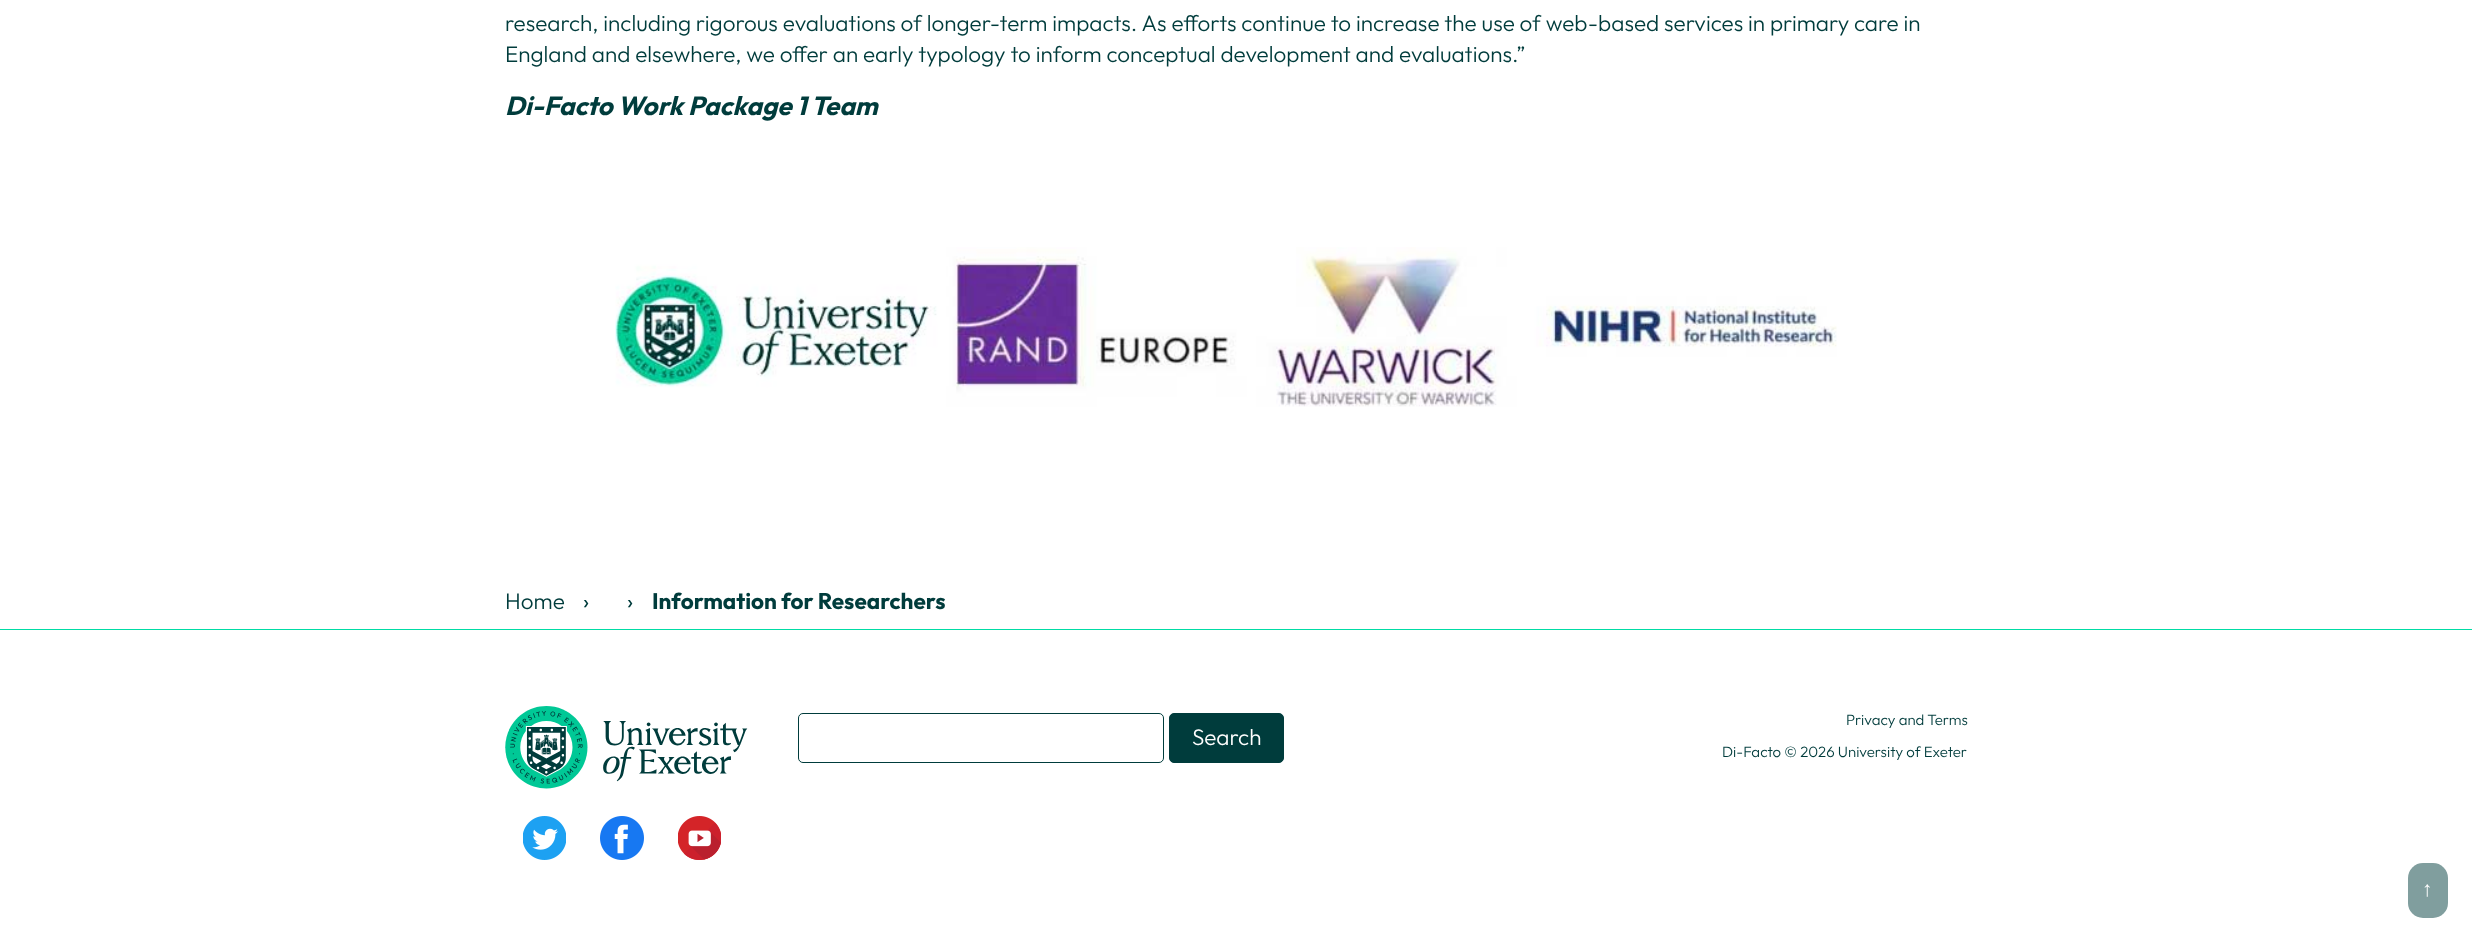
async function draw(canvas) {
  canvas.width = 2472;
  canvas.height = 934;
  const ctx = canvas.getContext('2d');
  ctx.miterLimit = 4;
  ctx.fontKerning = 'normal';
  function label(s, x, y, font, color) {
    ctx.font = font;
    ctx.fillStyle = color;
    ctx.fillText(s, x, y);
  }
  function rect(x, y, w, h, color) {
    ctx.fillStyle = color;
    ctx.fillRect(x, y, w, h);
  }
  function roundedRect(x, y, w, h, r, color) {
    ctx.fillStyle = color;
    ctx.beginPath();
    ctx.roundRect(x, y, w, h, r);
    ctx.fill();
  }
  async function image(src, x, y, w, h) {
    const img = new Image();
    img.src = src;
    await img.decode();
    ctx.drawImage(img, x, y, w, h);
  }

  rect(0, 0, 2472, 934, '#fff');
  label('research, including rigorous evaluations of longer-term impacts. As efforts continue to increase the use of web-based services in primary care in', 505, 31, '300 22.5px Outfit', '#003c3c');
  label('England and elsewhere, we offer an early typology to inform conceptual development and evaluations.”', 505, 62, '300 22.5px Outfit', '#003c3c');
  label('Di-Facto Work Package 1 Team', 505, 115, 'italic bold 26.25px Outfit', '#003c3c');
  await image('assets/img1.png', 615, 247, 1222, 160);
  label('Home', 505, 609, '300 22.5px Outfit', '#003c3c');
  label('›', 583, 609, '22.5px Outfit', '#003c3c');
  label('›', 627, 609, '22.5px Outfit', '#003c3c');
  label('Information for Researchers', 652, 609, 'bold 22.5px Outfit', '#003c3c');
  rect(0, 629, 2472, 1, '#00dca5');
  await image('assets/img2.png', 505, 706, 243, 83);
  ctx.beginPath();
  ctx.roundRect(798.5, 713.5, 365, 49, 4.5);
  ctx.strokeStyle = '#003c3c';
  ctx.stroke();
  ctx.fillStyle = '#003c3c';
  ctx.beginPath();
  ctx.roundRect(1169.5, 713.5, 114, 49, 4.5);
  ctx.fill();
  ctx.stroke();
  label('Search', 1192, 745, '300 22.5px Outfit', '#fff');
  await image('assets/img3.png', 523, 816, 43, 44);
  await image('assets/img4.png', 600, 816, 44, 44);
  await image('assets/img5.png', 678, 816, 43, 44);
  label('Privacy and Terms', 1846, 725, '300 15px Outfit', '#003c3c');
  label('Di-Facto © 2026 University of Exeter', 1722, 757, '300 15px Outfit', '#003c3c');
  roundedRect(2408, 863, 40, 55, 15, '#809e9e');
  label('↑', 2422, 896, '21px Liberation Sans', '#fff');
}

draw(document.querySelector('canvas'));
